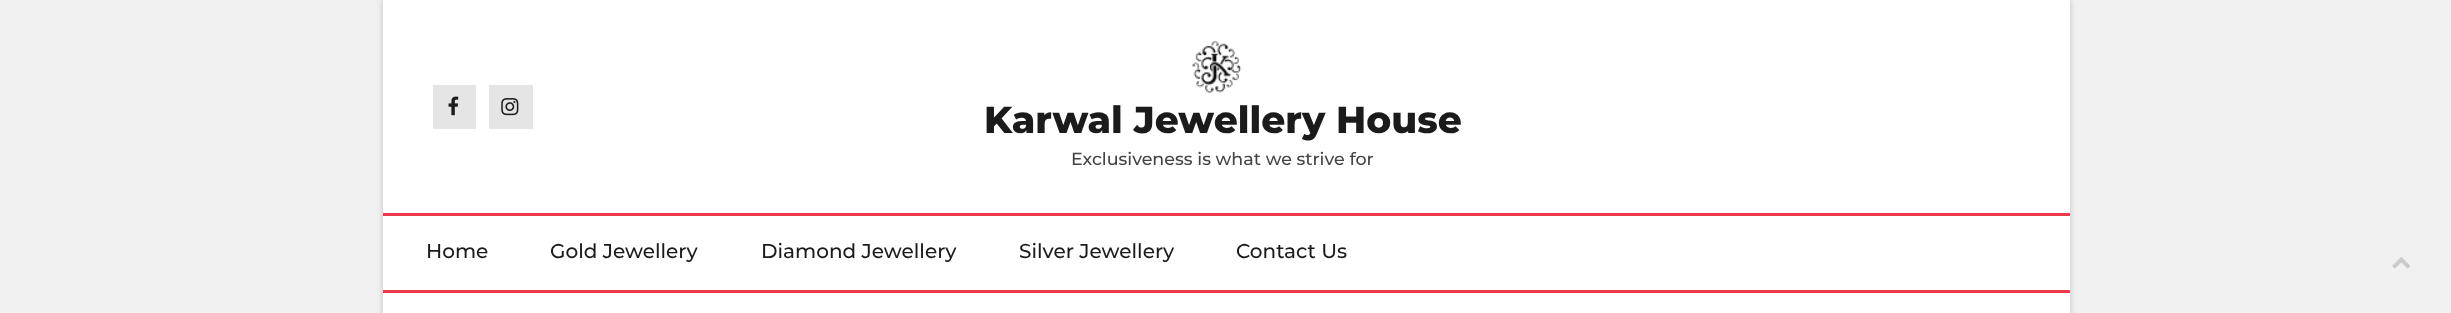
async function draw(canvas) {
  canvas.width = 2451;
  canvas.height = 313;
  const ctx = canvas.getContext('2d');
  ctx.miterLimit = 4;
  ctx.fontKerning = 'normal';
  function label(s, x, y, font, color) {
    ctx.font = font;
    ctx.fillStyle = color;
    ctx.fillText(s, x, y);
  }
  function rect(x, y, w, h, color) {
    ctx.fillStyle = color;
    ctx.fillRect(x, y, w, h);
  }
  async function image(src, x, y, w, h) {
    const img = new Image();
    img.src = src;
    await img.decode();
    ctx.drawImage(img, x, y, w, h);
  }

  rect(0, 0, 2451, 313, '#f1f1f1');
  ctx.fillStyle = '#00000033';
  ctx.filter = 'blur(3px)';
  ctx.beginPath();
  ctx.rect(383, 0, 1687, 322);
  ctx.fill();
  ctx.filter = 'none';
  rect(383, 0, 1687, 313, '#fff');
  rect(433, 85, 43, 44, '#e5e5e5');
  await image('assets/img1.png', 448, 96, 11, 20);
  rect(489, 85, 44, 44, '#e5e5e5');
  await image('assets/img2.png', 501, 98, 18, 18);
  await image('assets/img3.png', 1192, 41, 50, 52);
  label('Karwal Jewellery House', 984, 133, '800 37.5px Montserrat', '#1c1b1b');
  label('Exclusiveness is what we strive for', 1071, 165, '500 17.5px Montserrat', '#444');
  rect(383, 213, 1687, 3, '#ee394a');
  rect(383, 290, 1687, 3, '#ee394a');
  label('Home', 426, 258, '500 20px Montserrat', '#1c1b1b');
  label('Gold Jewellery', 550, 258, '500 20px Montserrat', '#1c1b1b');
  label('Diamond Jewellery', 761, 258, '500 20px Montserrat', '#1c1b1b');
  label('Silver Jewellery', 1019, 258, '500 20px Montserrat', '#1c1b1b');
  label('Contact Us', 1236, 258, '500 20px Montserrat', '#1c1b1b');
  await image('assets/img4.png', 2392, 257, 18, 12);
}

draw(document.querySelector('canvas'));
